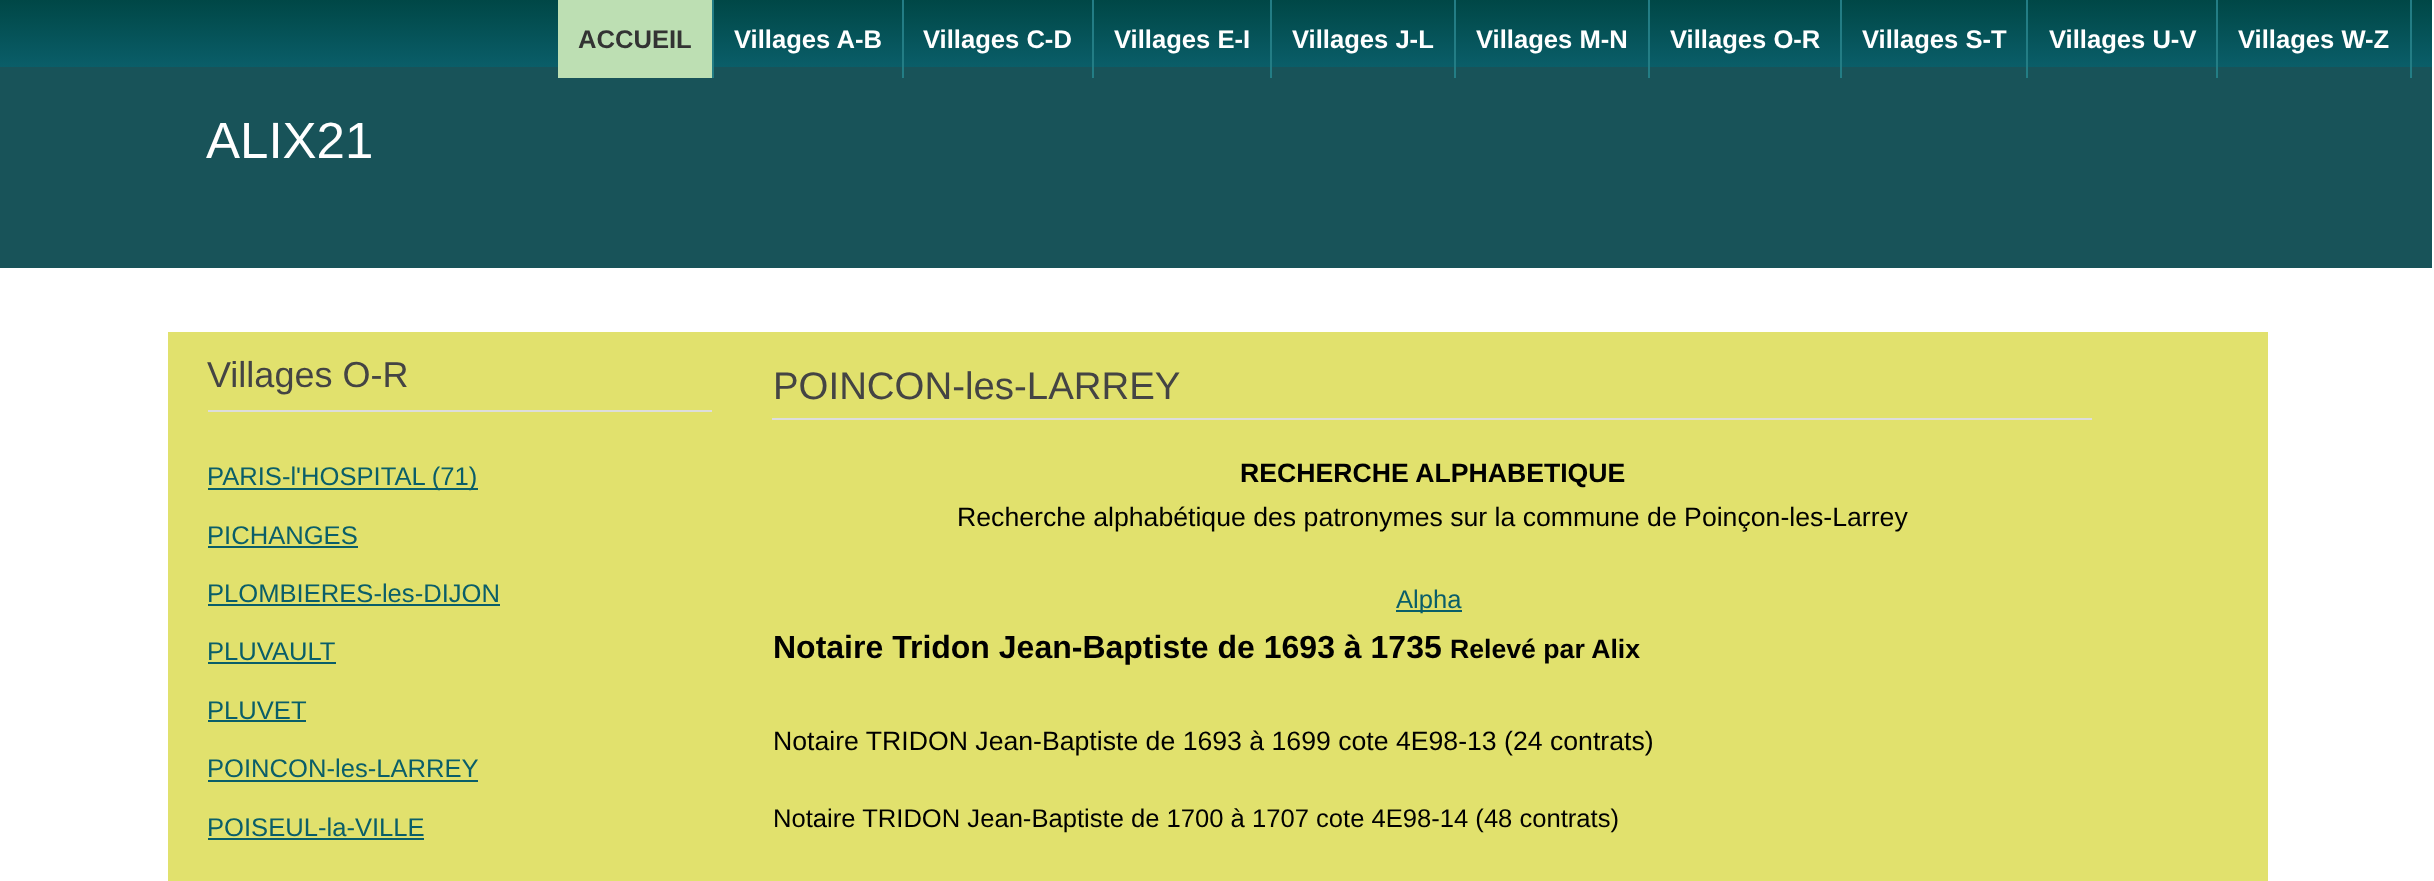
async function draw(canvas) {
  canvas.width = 2434;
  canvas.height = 881;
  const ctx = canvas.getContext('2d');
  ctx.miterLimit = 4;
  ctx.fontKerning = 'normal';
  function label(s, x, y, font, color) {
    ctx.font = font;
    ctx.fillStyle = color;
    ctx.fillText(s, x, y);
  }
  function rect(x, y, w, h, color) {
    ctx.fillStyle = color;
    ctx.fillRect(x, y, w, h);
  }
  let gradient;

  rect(0, 0, 2434, 881, '#fff');
  gradient = ctx.createLinearGradient(1216, 0, 1216, 268);
  gradient.addColorStop(0, '#004746');
  gradient.addColorStop(0.25, '#0a5e69');
  gradient.addColorStop(0.25, '#185359');
  ctx.fillStyle = gradient;
  ctx.fillRect(0, 0, 2432, 268);
  rect(558, 0, 154, 78, '#bddfb3');
  rect(712, 0, 2, 78, '#237d85');
  label('ACCUEIL', 578, 48, 'bold 25.6px Liberation Sans', '#333');
  rect(902, 0, 2, 78, '#237d85');
  label('Villages A-B', 734, 48, 'bold 25.6px Liberation Sans', '#fff');
  rect(1092, 0, 2, 78, '#237d85');
  label('Villages C-D', 923, 48, 'bold 25.6px Liberation Sans', '#fff');
  rect(1270, 0, 2, 78, '#237d85');
  label('Villages E-I', 1114, 48, 'bold 25.6px Liberation Sans', '#fff');
  rect(1454, 0, 2, 78, '#237d85');
  label('Villages J-L', 1292, 48, 'bold 25.6px Liberation Sans', '#fff');
  rect(1648, 0, 2, 78, '#237d85');
  label('Villages M-N', 1476, 48, 'bold 25.6px Liberation Sans', '#fff');
  rect(1840, 0, 2, 78, '#237d85');
  label('Villages O-R', 1670, 48, 'bold 25.6px Liberation Sans', '#fff');
  rect(2026, 0, 2, 78, '#237d85');
  label('Villages S-T', 1862, 48, 'bold 25.6px Liberation Sans', '#fff');
  rect(2216, 0, 2, 78, '#237d85');
  label('Villages U-V', 2049, 48, 'bold 25.6px Liberation Sans', '#fff');
  rect(2410, 0, 2, 78, '#237d85');
  label('Villages W-Z', 2238, 48, 'bold 25.6px Liberation Sans', '#fff');
  label('ALIX21', 206, 158, '51px Liberation Sans', '#fff');
  rect(168, 332, 2100, 549, '#e1e16d');
  rect(208, 410, 504, 2, '#ddd');
  label('Villages O-R', 207, 387, '36px Liberation Sans', '#444');
  rect(208, 488, 270, 2, '#0a5e69');
  label('PARIS-l\'HOSPITAL (71)', 207, 485, '25.6px Liberation Sans', '#0a5e69');
  label('PICHANGES', 207, 544, '25.6px Liberation Sans', '#0a5e69');
  rect(208, 546, 150, 2, '#0a5e69');
  label('PLOMBIERES-les-DIJON', 207, 602, '25.6px Liberation Sans', '#0a5e69');
  rect(208, 604, 292, 2, '#0a5e69');
  label('PLUVAULT', 207, 660, '25.6px Liberation Sans', '#0a5e69');
  rect(208, 662, 128, 2, '#0a5e69');
  label('PLUVET', 207, 719, '25.6px Liberation Sans', '#0a5e69');
  rect(208, 720, 98, 2, '#0a5e69');
  label('POINCON-les-LARREY', 207, 777, '25.6px Liberation Sans', '#0a5e69');
  rect(208, 780, 270, 2, '#0a5e69');
  label('POISEUL-la-VILLE', 207, 836, '25.6px Liberation Sans', '#0a5e69');
  rect(208, 838, 216, 2, '#0a5e69');
  rect(772, 418, 1320, 2, '#ddd');
  label('POINCON-les-LARREY', 773, 399, '38.4px Liberation Sans', '#444');
  label('RECHERCHE ALPHABETIQUE', 1240, 482, 'bold 26.65px Liberation Sans', '#000');
  label('Recherche alphabétique des patronymes sur la commune de Poinçon-les-Larrey', 957, 526, '26.65px Liberation Sans', '#000');
  rect(1396, 610, 66, 2, '#0a5e69');
  label('Alpha', 1396, 608, '25.6px Liberation Sans', '#0a5e69');
  label('Notaire Tridon Jean-Baptiste de 1693 à 1735', 773, 658, 'bold 32px Liberation Sans', '#000');
  label('Relevé par Alix', 1450, 658, 'bold 26.65px Liberation Sans', '#000');
  label('Notaire TRIDON Jean-Baptiste de 1693 à 1699 cote 4E98-13 (24 contrats)', 773, 750, '26.65px Liberation Sans', '#000');
  label('Notaire TRIDON Jean-Baptiste de 1700 à 1707 cote 4E98-14 (48 contrats)', 773, 827, '25.6px Liberation Sans', '#000');
}

draw(document.querySelector('canvas'));
